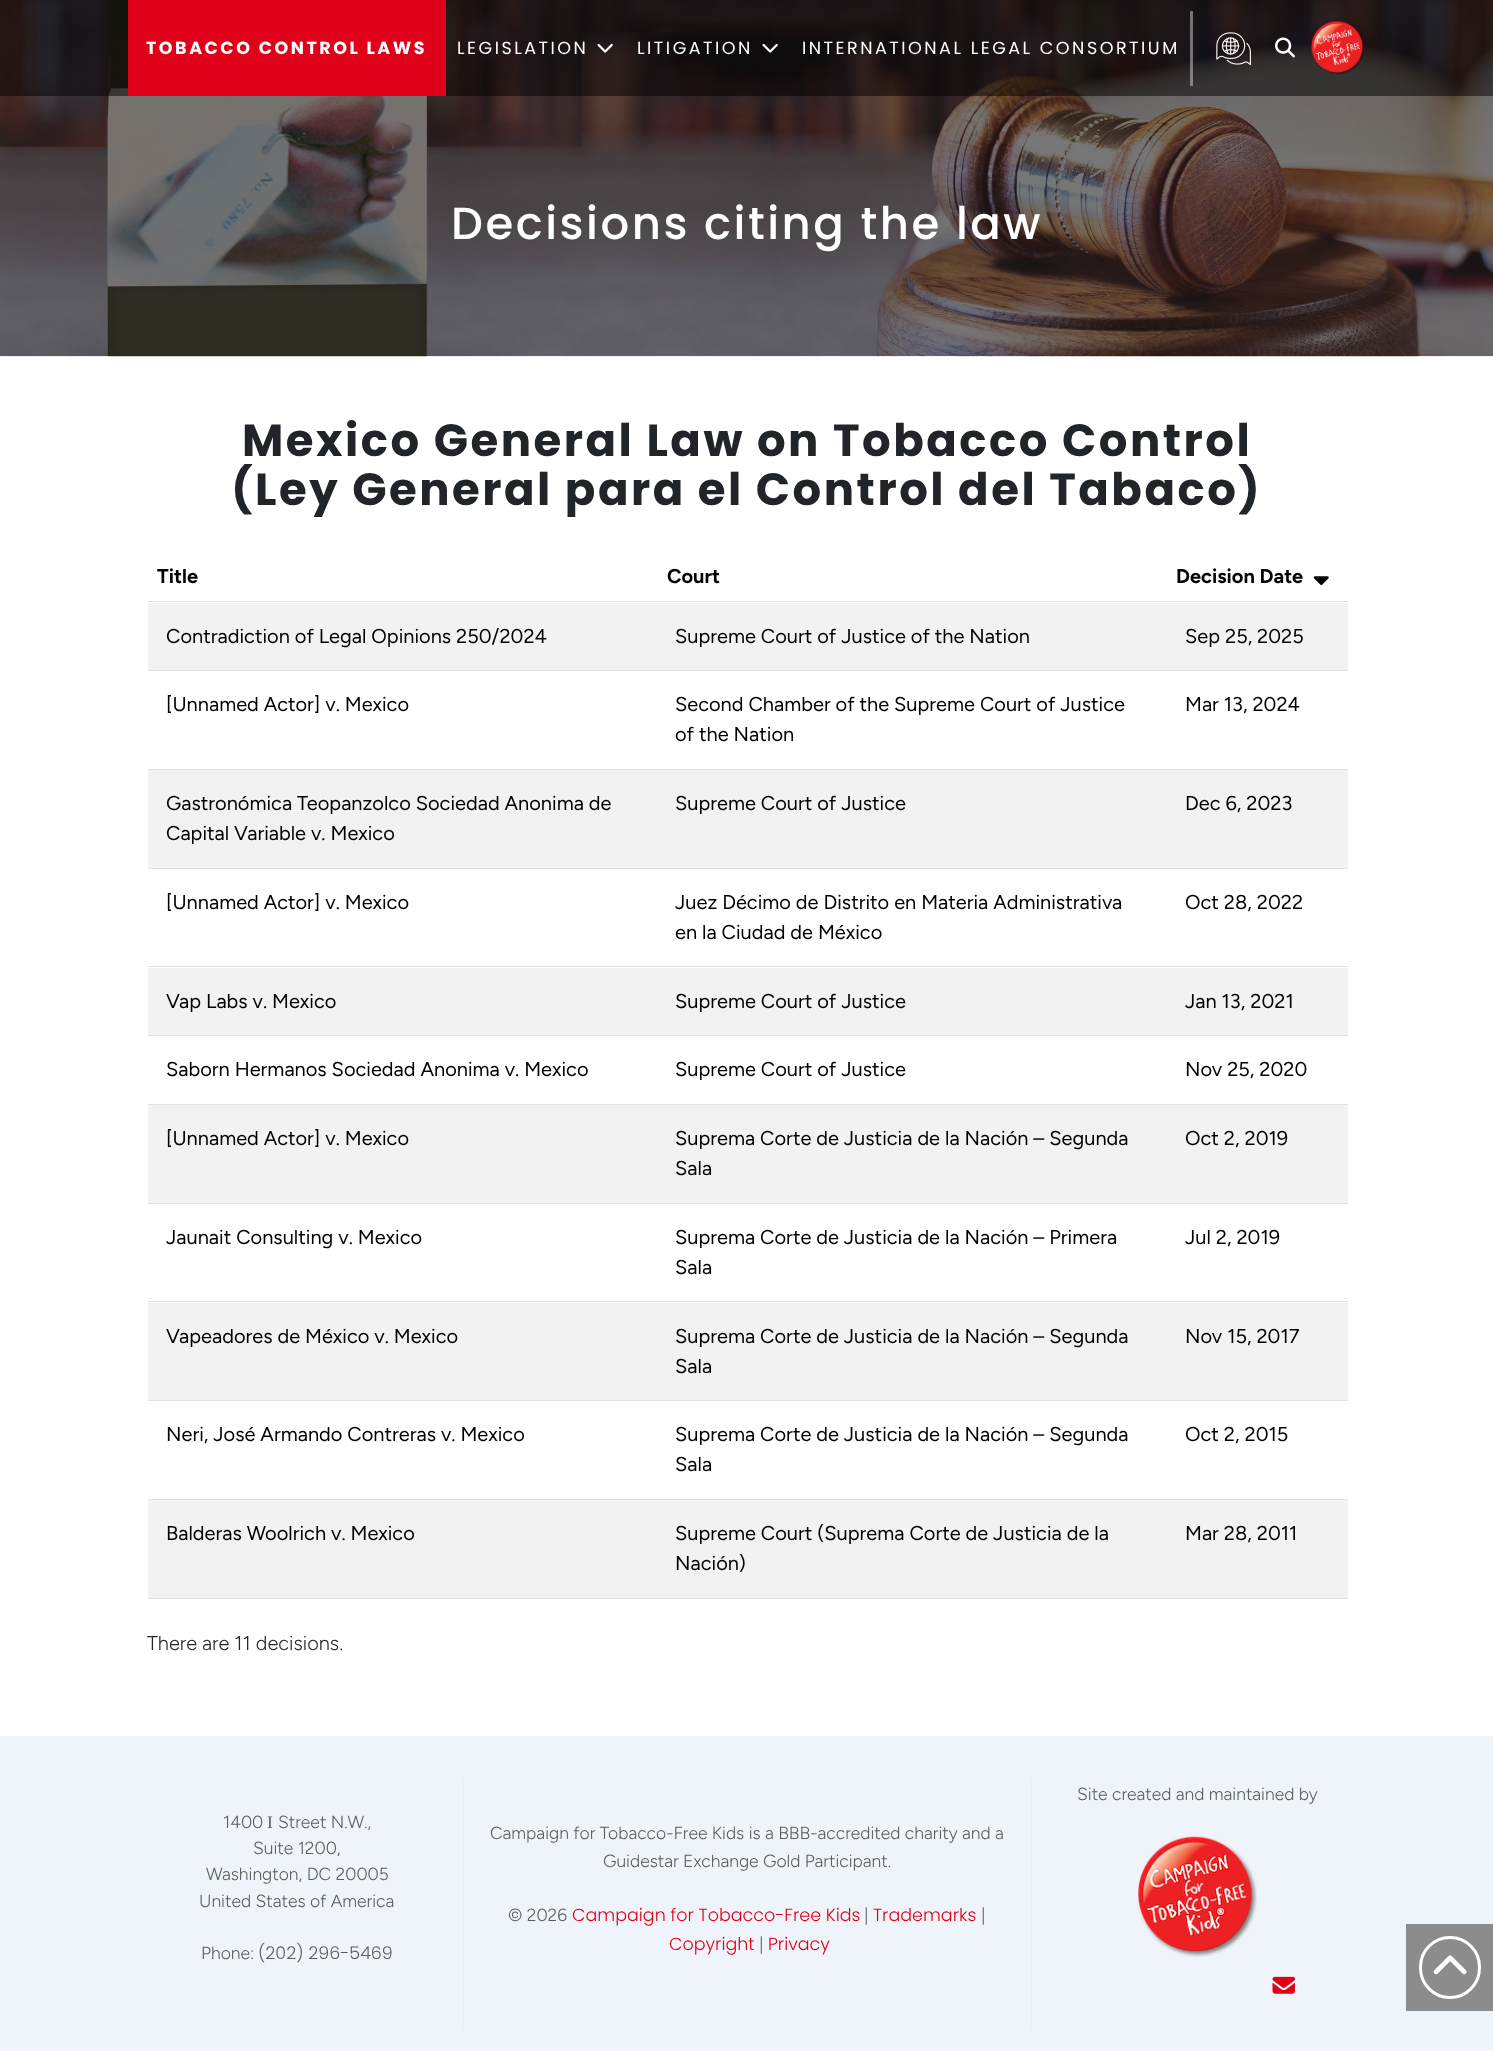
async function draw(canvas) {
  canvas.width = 1493;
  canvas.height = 2051;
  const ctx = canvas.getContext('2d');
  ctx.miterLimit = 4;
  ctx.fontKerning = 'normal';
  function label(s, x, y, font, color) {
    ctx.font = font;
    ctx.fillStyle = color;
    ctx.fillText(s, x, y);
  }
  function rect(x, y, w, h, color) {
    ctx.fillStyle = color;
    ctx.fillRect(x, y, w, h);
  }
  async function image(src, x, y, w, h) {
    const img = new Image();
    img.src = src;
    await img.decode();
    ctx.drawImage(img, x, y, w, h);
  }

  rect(0, 0, 1493, 2051, '#fff');
  await image('assets/img6.png', 0, 0, 1493, 357);
  rect(0, 0, 1493, 96, '#00000080');
  rect(128, 0, 318, 96, '#e1001a');
  ctx.letterSpacing = '2.5px';
  label('TOBACCO CONTROL LAWS', 146, 54, 'bold 17.5px Poppins', '#fff');
  rect(446, 0, 1, 96, '#0000002e');
  label('LEGISLATION', 457, 54, '17.5px Poppins', '#fff');
  await image('assets/img1.png', 597, 43, 16, 10);
  label('LITIGATION', 637, 54, '17.5px Poppins', '#fff');
  await image('assets/img2.png', 762, 43, 16, 10);
  label('INTERNATIONAL LEGAL CONSORTIUM', 802, 54, '17.5px Poppins', '#fff');
  rect(1190, 11, 3, 75, '#ffffff66');
  await image('assets/img3.png', 1216, 32, 35, 34);
  await image('assets/img4.png', 1275, 37, 20, 21);
  await image('assets/img5.png', 1310, 20, 54, 55);
  label('Decisions citing the law', 451, 239, '500 45px Poppins', '#fff');
  label('Mexico General Law on Tobacco Control', 242, 456, 'bold 45px Poppins', '#212529');
  label('(Ley General para el Control del Tabaco)', 231, 505, 'bold 45px Poppins', '#212529');
  ctx.letterSpacing = '0px';
  label('Title', 157, 583, 'bold 20px Figtree', '#000');
  label('Court', 667, 583, 'bold 20px Figtree', '#000');
  rect(148, 601, 1200, 1, '#dee2e6');
  label('Decision Date', 1176, 583, 'bold 20px Figtree', '#000');
  await image('assets/img7.png', 1313, 576, 16, 9);
  rect(148, 603, 1200, 67, '#f2f2f2');
  label('Contradiction of Legal Opinions 250/2024', 166, 643, '20px Figtree', '#000');
  label('Supreme Court of Justice of the Nation', 675, 643, '20px Figtree', '#000');
  rect(148, 670, 1200, 1, '#dee2e6');
  label('Sep 25, 2025', 1185, 643, '20px Figtree', '#000');
  label('[Unnamed Actor] v. Mexico', 166, 711, '20px Figtree', '#000');
  label('Second Chamber of the Supreme Court of Justice', 675, 711, '20px Figtree', '#000');
  label('of the Nation', 675, 741, '20px Figtree', '#000');
  rect(148, 769, 1200, 1, '#dee2e6');
  label('Mar 13, 2024', 1185, 711, '20px Figtree', '#000');
  rect(148, 770, 1200, 98, '#f2f2f2');
  label('Gastronómica Teopanzolco Sociedad Anonima de', 166, 810, '20px Figtree', '#000');
  label('Capital Variable v. Mexico', 166, 840, '20px Figtree', '#000');
  label('Supreme Court of Justice', 675, 810, '20px Figtree', '#000');
  rect(148, 868, 1200, 1, '#dee2e6');
  label('Dec 6, 2023', 1185, 810, '20px Figtree', '#000');
  label('[Unnamed Actor] v. Mexico', 166, 909, '20px Figtree', '#000');
  label('Juez Décimo de Distrito en Materia Administrativa', 675, 909, '20px Figtree', '#000');
  label('en la Ciudad de México', 675, 939, '20px Figtree', '#000');
  rect(148, 966, 1200, 1, '#dee2e6');
  label('Oct 28, 2022', 1185, 909, '20px Figtree', '#000');
  rect(148, 968, 1200, 67, '#f2f2f2');
  label('Vap Labs v. Mexico', 166, 1008, '20px Figtree', '#000');
  label('Supreme Court of Justice', 675, 1008, '20px Figtree', '#000');
  rect(148, 1035, 1200, 1, '#dee2e6');
  label('Jan 13, 2021', 1185, 1008, '20px Figtree', '#000');
  label('Saborn Hermanos Sociedad Anonima v. Mexico', 166, 1076, '20px Figtree', '#000');
  label('Supreme Court of Justice', 675, 1076, '20px Figtree', '#000');
  rect(148, 1104, 1200, 1, '#dee2e6');
  label('Nov 25, 2020', 1185, 1076, '20px Figtree', '#000');
  rect(148, 1105, 1200, 98, '#f2f2f2');
  label('[Unnamed Actor] v. Mexico', 166, 1145, '20px Figtree', '#000');
  label('Suprema Corte de Justicia de la Nación – Segunda', 675, 1145, '20px Figtree', '#000');
  label('Sala', 675, 1175, '20px Figtree', '#000');
  rect(148, 1203, 1200, 1, '#dee2e6');
  label('Oct 2, 2019', 1185, 1145, '20px Figtree', '#000');
  label('Jaunait Consulting v. Mexico', 166, 1244, '20px Figtree', '#000');
  label('Suprema Corte de Justicia de la Nación – Primera', 675, 1244, '20px Figtree', '#000');
  label('Sala', 675, 1274, '20px Figtree', '#000');
  rect(148, 1301, 1200, 1, '#dee2e6');
  label('Jul 2, 2019', 1185, 1244, '20px Figtree', '#000');
  rect(148, 1303, 1200, 97, '#f2f2f2');
  label('Vapeadores de México v. Mexico', 166, 1343, '20px Figtree', '#000');
  label('Suprema Corte de Justicia de la Nación – Segunda', 675, 1343, '20px Figtree', '#000');
  label('Sala', 675, 1373, '20px Figtree', '#000');
  rect(148, 1400, 1200, 1, '#dee2e6');
  label('Nov 15, 2017', 1185, 1343, '20px Figtree', '#000');
  label('Neri, José Armando Contreras v. Mexico', 166, 1441, '20px Figtree', '#000');
  label('Suprema Corte de Justicia de la Nación – Segunda', 675, 1441, '20px Figtree', '#000');
  label('Sala', 675, 1471, '20px Figtree', '#000');
  rect(148, 1499, 1200, 1, '#dee2e6');
  label('Oct 2, 2015', 1185, 1441, '20px Figtree', '#000');
  rect(148, 1500, 1200, 98, '#f2f2f2');
  label('Balderas Woolrich v. Mexico', 166, 1540, '20px Figtree', '#000');
  label('Supreme Court (Suprema Corte de Justicia de la', 675, 1540, '20px Figtree', '#000');
  label('Nación)', 675, 1570, '20px Figtree', '#000');
  rect(148, 1598, 1200, 1, '#dee2e6');
  label('Mar 28, 2011', 1185, 1540, '20px Figtree', '#000');
  label('There are 11 decisions.', 147, 1650, '300 20px Figtree', '#212529');
  rect(0, 1736, 1493, 315, '#eff4fa');
  rect(1406, 1924, 87, 87, '#8b8c8b');
  ctx.beginPath();
  ctx.roundRect(1420.5, 1937.5, 59, 60, 29.5);
  ctx.strokeStyle = '#fff';
  ctx.lineWidth = 3;
  ctx.stroke();
  await image('assets/img8.png', 1433, 1955, 34, 20);
  label('Site created and maintained by', 1077, 1800, '300 17.5px Figtree', '#5c5c5c');
  await image('assets/img9.png', 1137, 1836, 120, 121);
  await image('assets/img10.png', 1272, 1976, 23, 18);
  label('1400', 223, 1828, '300 17.5px Figtree', '#5c5c5c');
  label('I', 267, 1828, '17.5px Liberation Serif', '#5c5c5c');
  label('Street N.W.,', 278, 1828, '300 17.5px Figtree', '#5c5c5c');
  label('Suite 1200,', 253, 1854, '300 17.5px Figtree', '#5c5c5c');
  label('Washington, DC 20005', 206, 1880, '300 17.5px Figtree', '#5c5c5c');
  label('United States of America', 199, 1907, '300 17.5px Figtree', '#5c5c5c');
  label('Phone:', 201, 1959, '300 17.5px Figtree', '#5c5c5c');
  label('(202) 296-5469', 258, 1959, '300 17.5px Poppins', '#5c5c5c');
  rect(463, 1780, 1, 250, '#e8eef4');
  label('Campaign for Tobacco-Free Kids is a BBB-accredited charity and a', 490, 1839, '300 17.5px Figtree', '#5c5c5c');
  label('Guidestar Exchange Gold Participant.', 603, 1867, '300 17.5px Figtree', '#5c5c5c');
  rect(1031, 1780, 1, 250, '#e8eef4');
  label('© 2026', 508, 1921, '300 17.5px Figtree', '#5c5c5c');
  label('Campaign for Tobacco-Free Kids', 572, 1921, '300 17.5px Poppins', '#e1001a');
  label('|', 864, 1921, '300 17.5px Figtree', '#5c5c5c');
  label('Trademarks', 873, 1921, '300 17.5px Poppins', '#e1001a');
  label('|', 981, 1921, '300 17.5px Figtree', '#5c5c5c');
  label('Copyright', 669, 1950, '300 17.5px Poppins', '#e1001a');
  label('|', 759, 1950, '300 17.5px Figtree', '#5c5c5c');
  label('Privacy', 768, 1950, '300 17.5px Poppins', '#e1001a');
}

draw(document.querySelector('canvas'));
